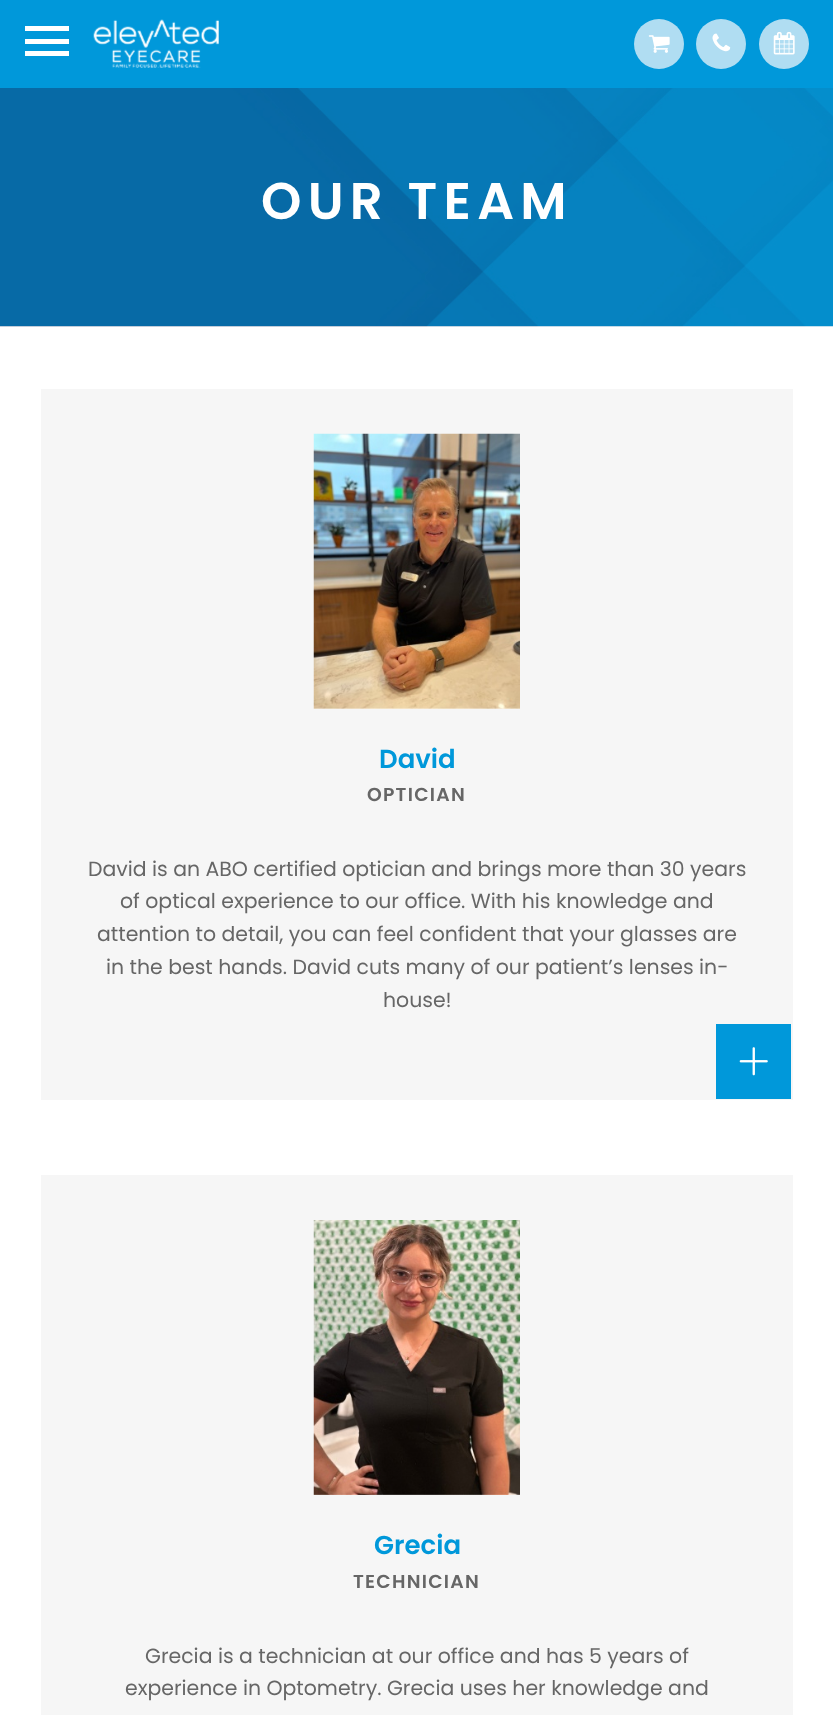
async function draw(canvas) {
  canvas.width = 833;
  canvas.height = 1715;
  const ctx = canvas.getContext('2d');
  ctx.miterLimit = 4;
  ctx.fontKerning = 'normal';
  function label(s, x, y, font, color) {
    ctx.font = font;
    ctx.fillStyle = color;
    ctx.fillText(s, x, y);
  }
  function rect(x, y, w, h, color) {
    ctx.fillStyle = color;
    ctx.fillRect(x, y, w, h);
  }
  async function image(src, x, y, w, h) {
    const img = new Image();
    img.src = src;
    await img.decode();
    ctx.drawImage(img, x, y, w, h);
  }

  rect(0, 0, 833, 1715, '#fff');
  rect(0, 0, 833, 88, '#0098da');
  rect(25, 51, 44, 5, '#fff');
  rect(25, 26, 44, 5, '#fff');
  rect(25, 39, 44, 5, '#fff');
  await image('assets/img1.png', 93, 19, 126, 49);
  ctx.fillStyle = '#b0ddf2';
  ctx.beginPath();
  ctx.arc(659, 44, 25, 0, 2 * Math.PI);
  ctx.fill();
  await image('assets/img2.png', 648, 35, 22, 18);
  ctx.beginPath();
  ctx.arc(721, 44, 25, 0, 2 * Math.PI);
  ctx.fill();
  await image('assets/img3.png', 712, 33, 19, 19);
  ctx.beginPath();
  ctx.arc(784, 44, 25, 0, 2 * Math.PI);
  ctx.fill();
  await image('assets/img4.png', 773, 31, 22, 24);
  await image('assets/img5.png', 0, 88, 833, 239);
  ctx.letterSpacing = '6.25px';
  label('OUR TEAM', 261, 219, '600 51.5px Poppins', '#fff');
  rect(41, 389, 752, 711, '#f6f6f6');
  await image('assets/img6.png', 313, 433, 207, 276);
  ctx.letterSpacing = '0px';
  label('David', 379, 768, '600 26px Poppins', '#0098da');
  ctx.letterSpacing = '1.25px';
  label('OPTICIAN', 367, 801, '600 18.75px Poppins', '#666');
  ctx.letterSpacing = '0px';
  label('David is an ABO certified optician and brings more than 30 years', 88, 876, '20.45px Poppins', '#666');
  label('of optical experience to our office. With his knowledge and', 120, 908, '20.45px Poppins', '#666');
  label('attention to detail, you can feel confident that your glasses are', 97, 941, '20.45px Poppins', '#666');
  label('in the best hands. David cuts many of our patient’s lenses in-', 106, 974, '20.45px Poppins', '#666');
  label('house!', 383, 1007, '20.45px Poppins', '#666');
  rect(716, 1024, 75, 75, '#0098da');
  await image('assets/img7.png', 739, 1047, 29, 29);
  rect(41, 1175, 752, 540, '#f6f6f6');
  await image('assets/img8.png', 313, 1220, 207, 275);
  label('Grecia', 374, 1554, '600 26px Poppins', '#0098da');
  ctx.letterSpacing = '1.25px';
  label('TECHNICIAN', 353, 1588, '600 18.75px Poppins', '#666');
  ctx.letterSpacing = '0px';
  label('Grecia is a technician at our office and has 5 years of', 145, 1663, '20.45px Poppins', '#666');
  label('experience in Optometry. Grecia uses her knowledge and', 125, 1695, '20.45px Poppins', '#666');
}

draw(document.querySelector('canvas'));
